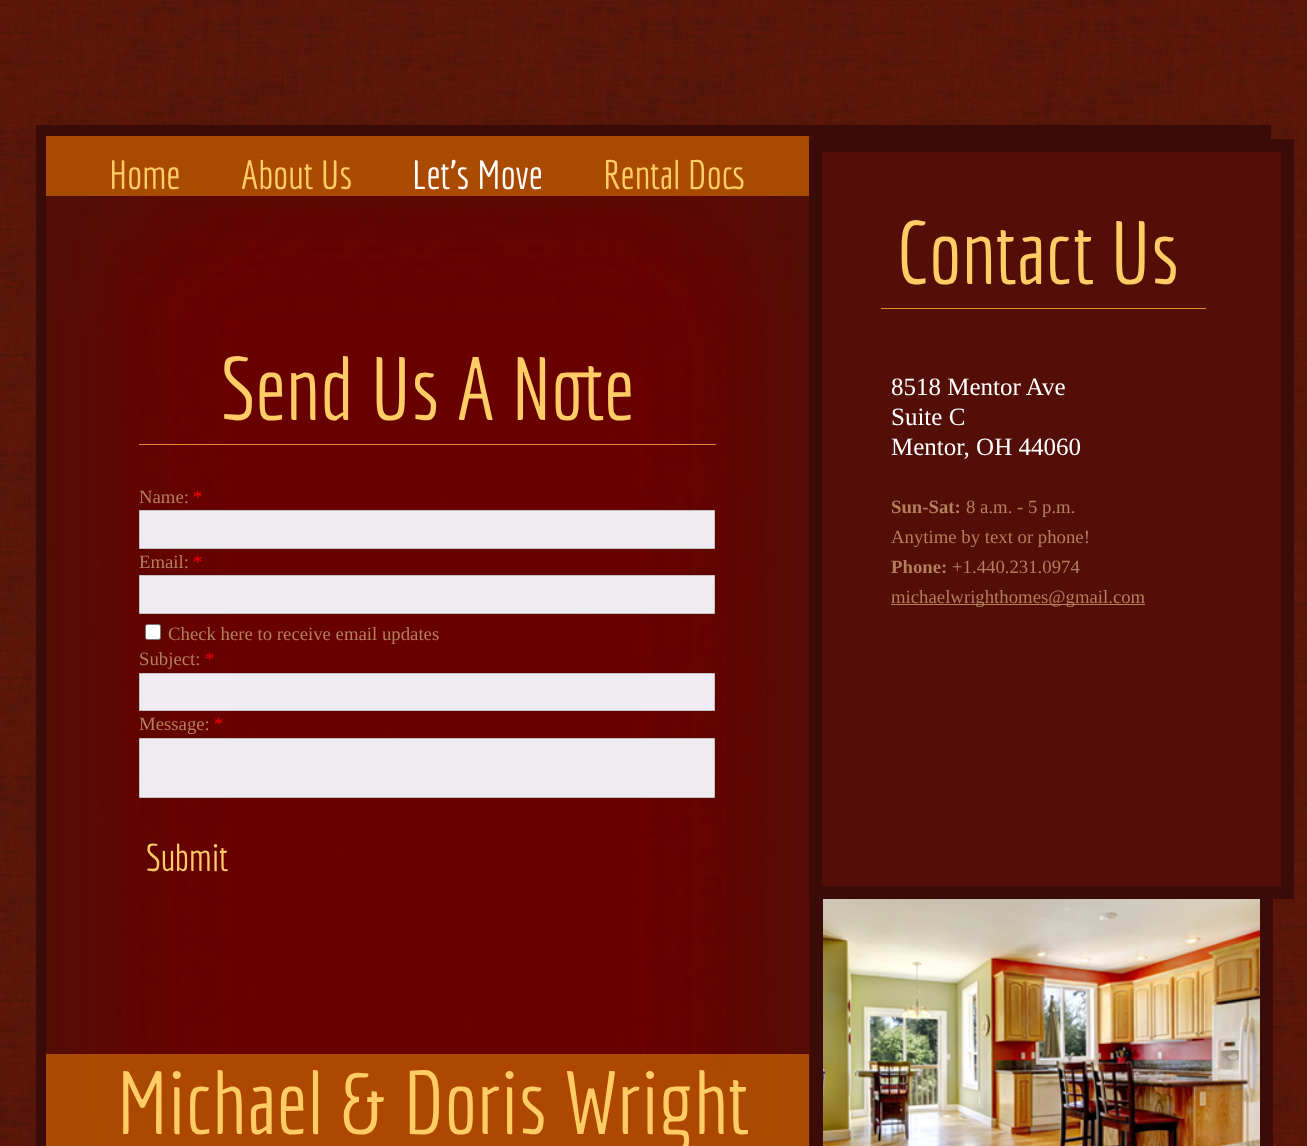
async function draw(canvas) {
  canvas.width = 1307;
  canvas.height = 1146;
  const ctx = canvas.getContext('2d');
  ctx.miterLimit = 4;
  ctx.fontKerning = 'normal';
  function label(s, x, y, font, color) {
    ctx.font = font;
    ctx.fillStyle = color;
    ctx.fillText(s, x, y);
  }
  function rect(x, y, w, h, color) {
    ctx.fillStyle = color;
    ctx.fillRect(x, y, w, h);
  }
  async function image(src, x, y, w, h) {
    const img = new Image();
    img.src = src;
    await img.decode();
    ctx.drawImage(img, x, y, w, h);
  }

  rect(0, 0, 1307, 1146, '#fff');
  await image('assets/img1.png', 0, 0, 1307, 1146);
  rect(36, 125, 1235, 1021, '#3b0b08');
  await image('assets/img2.png', 46, 136, 767, 1010);
  ctx.strokeStyle = '#3b0b08';
  ctx.lineWidth = 13;
  ctx.strokeRect(816.5, 856.5, 450, 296);
  ctx.fillStyle = '#520e07';
  ctx.beginPath();
  ctx.rect(815.5, 145.5, 472, 747);
  ctx.fill();
  ctx.stroke();
  rect(46, 136, 763, 60, '#cc6600b3');
  label('Home', 109, 189, '40px Economica', '#fc6');
  label('About Us', 241, 189, '40px Economica', '#fc6');
  label('Let\'s Move', 412, 189, '40px Economica', '#fff');
  label('Rental Docs', 603, 189, '40px Economica', '#fc6');
  label('Contact Us', 896, 284, '87.5px Economica', '#fc6');
  rect(881, 308, 325, 1, '#eb8431');
  label('Send Us A Note', 221, 420, '87.5px Economica', '#fc6');
  label('8518 Mentor Ave', 891, 395, '25px Liberation Serif', '#fff');
  label('Suite C', 891, 425, '25px Liberation Serif', '#fff');
  label('Mentor, OH 44060', 891, 455, '25px Liberation Serif', '#fff');
  label('Sun-Sat:', 891, 513, 'bold 18.75px Liberation Serif', '#b47f5c');
  label('8 a.m. - 5 p.m.', 966, 513, '18.75px Liberation Serif', '#b47f5c');
  label('Anytime by text or phone!', 891, 543, '18.75px Liberation Serif', '#b47f5c');
  label('Phone:', 891, 573, 'bold 18.75px Liberation Serif', '#b47f5c');
  label('+1.440.231.0974', 952, 573, '18.75px Liberation Serif', '#b47f5c');
  rect(891, 604, 254, 1, '#b47f5c');
  label('michaelwrighthomes@gmail.com', 891, 603, '18.75px Liberation Serif', '#b47f5c');
  rect(139, 444, 577, 1, '#eb8431');
  label('Name:', 139, 503, '18.75px Liberation Serif', '#b47f5c');
  label('*', 193, 503, '18.75px Liberation Serif', '#f00');
  ctx.fillStyle = '#eeecf0';
  ctx.beginPath();
  ctx.rect(139.5, 510.5, 575, 38);
  ctx.fill();
  ctx.strokeStyle = '#c2c2c1';
  ctx.lineWidth = 1;
  ctx.stroke();
  label('Email:', 139, 568, '18.75px Liberation Serif', '#b47f5c');
  label('*', 193, 568, '18.75px Liberation Serif', '#f00');
  ctx.fillStyle = '#eeecf0';
  ctx.beginPath();
  ctx.rect(139.5, 575.5, 575, 38);
  ctx.fill();
  ctx.stroke();
  ctx.fillStyle = '#fff';
  ctx.beginPath();
  ctx.roundRect(145.5, 624.5, 15, 15, 2);
  ctx.fill();
  ctx.strokeStyle = '#767676';
  ctx.stroke();
  label('Check here to receive email updates', 168, 640, '18.75px Liberation Serif', '#b47f5c');
  label('Subject:', 139, 665, '18.75px Liberation Serif', '#b47f5c');
  label('*', 205, 665, '18.75px Liberation Serif', '#f00');
  ctx.fillStyle = '#eeecf0';
  ctx.beginPath();
  ctx.rect(139.5, 673.5, 575, 37);
  ctx.fill();
  ctx.strokeStyle = '#c2c2c1';
  ctx.stroke();
  label('Message:', 139, 730, '18.75px Liberation Serif', '#b47f5c');
  label('*', 214, 730, '18.75px Liberation Serif', '#f00');
  ctx.fillStyle = '#eeecf0';
  ctx.beginPath();
  ctx.rect(139.5, 738.5, 575, 59);
  ctx.fill();
  ctx.stroke();
  label('Submit', 146, 871, '37.5px Economica', '#fc6');
  rect(46, 1054, 763, 92, '#cc6600b3');
  await image('assets/img3.png', 823, 899, 437, 247);
  label('Michael & Doris Wright', 117, 1134, '87.5px Economica', '#fc6');
}

draw(document.querySelector('canvas'));
